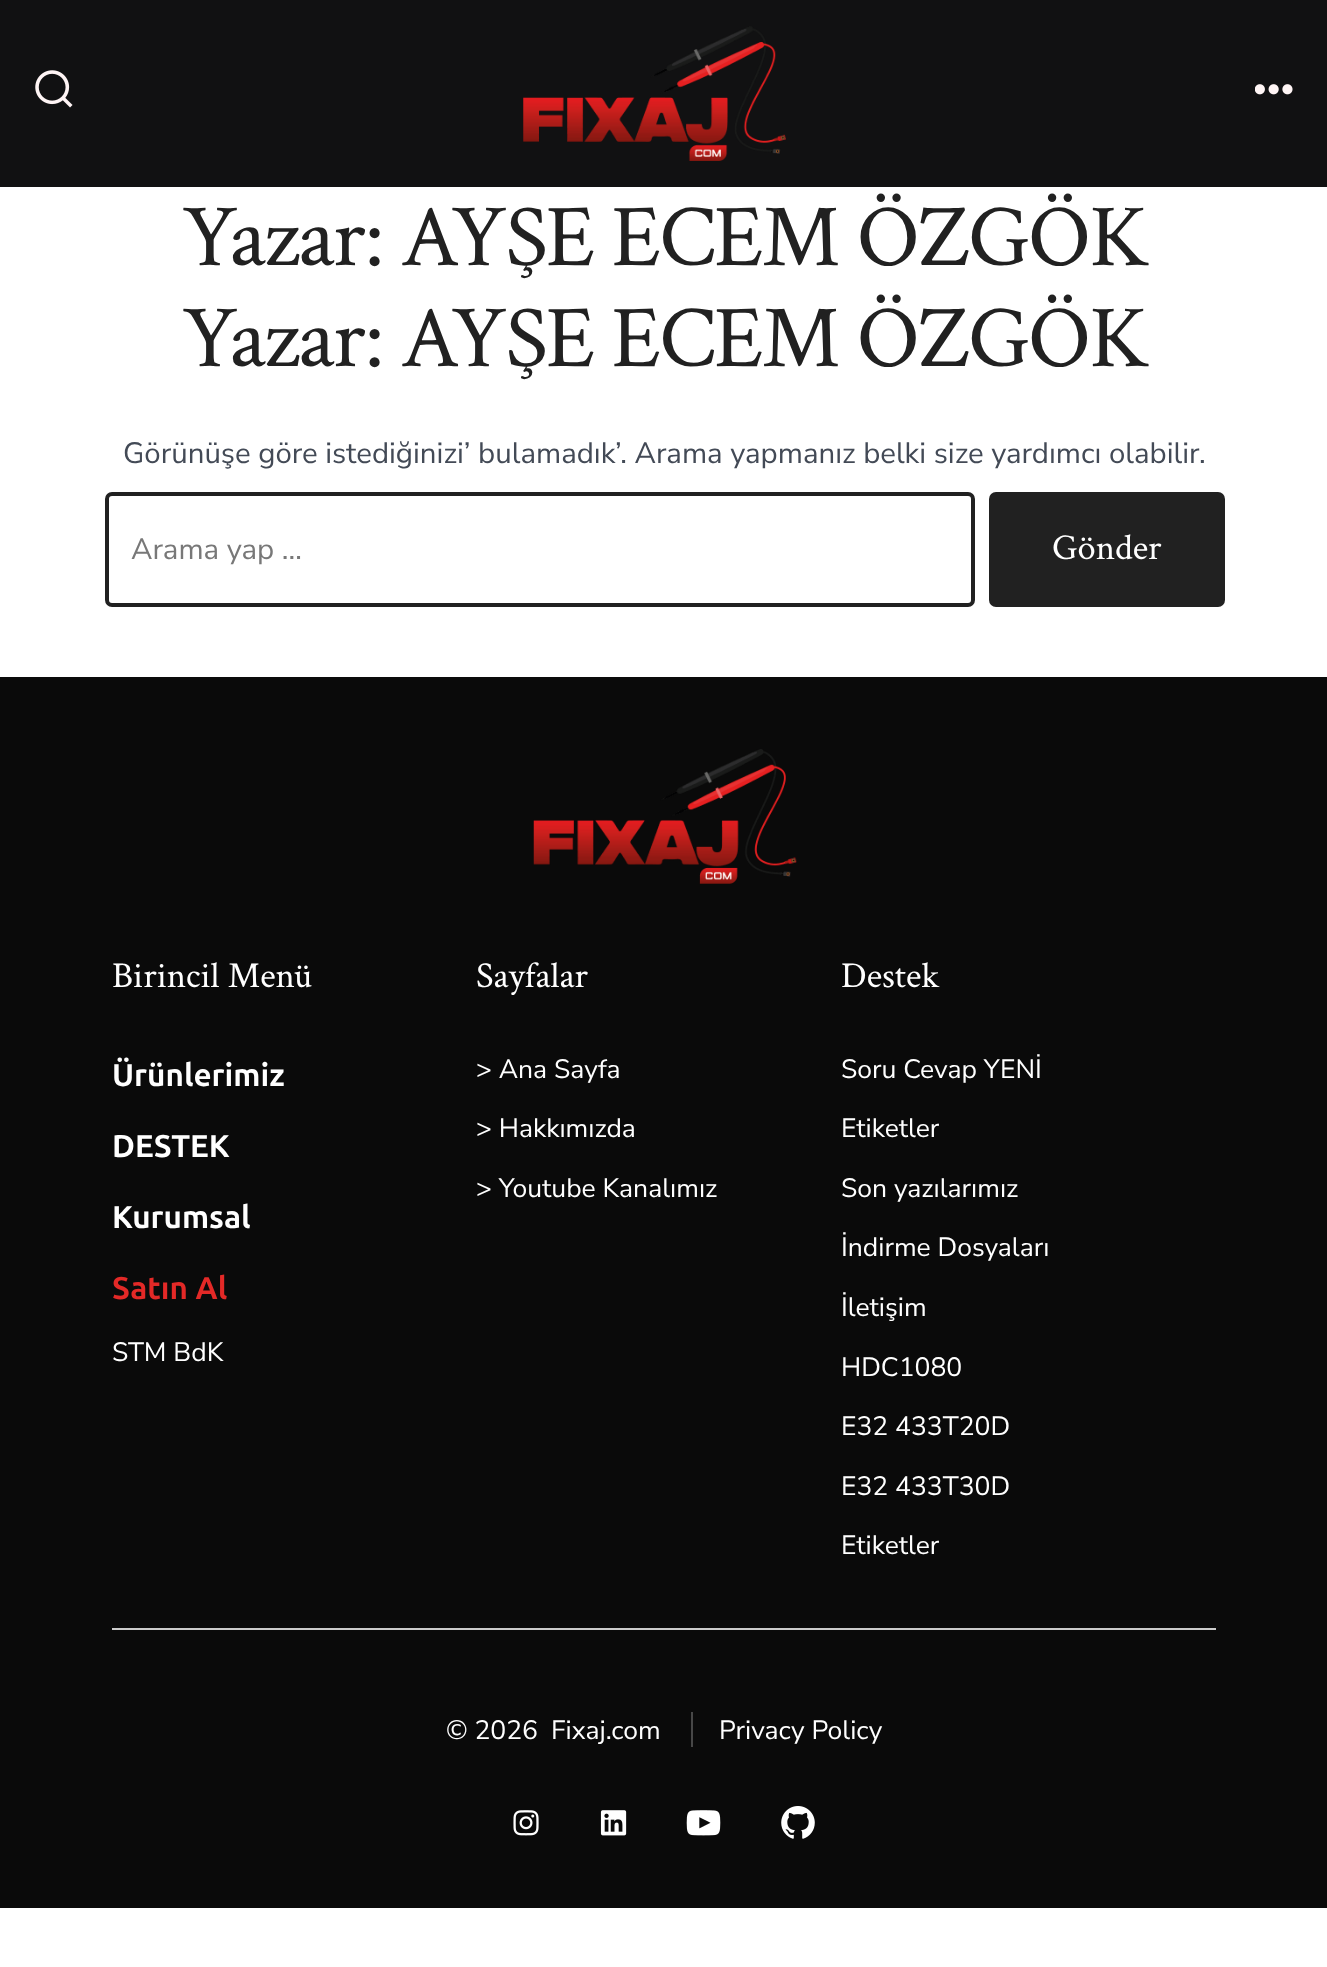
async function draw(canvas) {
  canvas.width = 1327;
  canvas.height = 1967;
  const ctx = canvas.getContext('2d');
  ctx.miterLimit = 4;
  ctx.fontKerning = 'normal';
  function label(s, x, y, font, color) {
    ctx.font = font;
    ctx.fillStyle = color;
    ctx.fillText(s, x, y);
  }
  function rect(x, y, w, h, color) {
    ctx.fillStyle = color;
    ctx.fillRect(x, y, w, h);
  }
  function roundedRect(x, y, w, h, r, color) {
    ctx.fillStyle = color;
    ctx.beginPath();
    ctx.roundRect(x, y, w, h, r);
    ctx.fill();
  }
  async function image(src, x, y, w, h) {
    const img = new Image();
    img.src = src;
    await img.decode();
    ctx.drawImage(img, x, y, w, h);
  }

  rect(0, 0, 1327, 1967, '#fff');
  rect(0, 0, 1327, 187, '#111112');
  await image('assets/img1.png', 35, 70, 38, 38);
  await image('assets/img2.png', 523, 26, 263, 135);
  await image('assets/img3.png', 1255, 84, 38, 11);
  ctx.letterSpacing = '-1.75px';
  label('Yazar: AYŞE ECEM ÖZGÖK', 182, 265, '88.5px Crimson Text', '#212121');
  label('Yazar: AYŞE ECEM ÖZGÖK', 182, 366, '88.5px Crimson Text', '#212121');
  ctx.letterSpacing = '0px';
  label('Görünüşe göre istediğinizi’ bulamadık’. Arama yapmanız belki size yardımcı olabilir.', 123, 463, '29.4px Nunito Sans', '#434a56');
  ctx.beginPath();
  ctx.roundRect(107, 494, 866, 111, 5);
  ctx.strokeStyle = '#212121';
  ctx.lineWidth = 4;
  ctx.stroke();
  label('Arama yap …', 131, 559, '29.4px Nunito Sans', '#787878');
  roundedRect(989, 492, 236, 115, 7, '#212121');
  label('Gönder', 1052, 559, '36.5px Crimson Text', '#fff');
  rect(0, 677, 1327, 1231, '#0a0a0a');
  await image('assets/img4.png', 533, 749, 264, 135);
  label('Birincil Menü', 112, 987, '36.5px Crimson Text', '#fff');
  label('Ürünlerimiz', 112, 1086, 'bold 31.5px Ubuntu', '#fff');
  label('DESTEK', 112, 1157, 'bold 31.5px Ubuntu', '#fff');
  label('Kurumsal', 112, 1228, 'bold 31.5px Ubuntu', '#fff');
  label('Satın Al', 112, 1299, 'bold 31.5px Ubuntu', '#e32927');
  label('STM BdK', 112, 1361, '26.5px Nunito Sans', '#fff');
  label('Sayfalar', 476, 987, '36.5px Crimson Text', '#fff');
  label('> Ana Sayfa', 476, 1078, '26.5px Nunito Sans', '#fff');
  label('> Hakkımızda', 476, 1137, '26.5px Nunito Sans', '#fff');
  label('> Youtube Kanalımız', 476, 1197, '26.5px Nunito Sans', '#fff');
  label('Destek', 841, 987, '36.5px Crimson Text', '#fff');
  label('Soru Cevap YENİ', 841, 1078, '26.5px Nunito Sans', '#fff');
  label('Etiketler', 841, 1137, '26.5px Nunito Sans', '#fff');
  label('Son yazılarımız', 841, 1197, '26.5px Nunito Sans', '#fff');
  label('İndirme Dosyaları', 841, 1256, '26.5px Nunito Sans', '#fff');
  label('İletişim', 841, 1316, '26.5px Nunito Sans', '#fff');
  label('HDC1080', 841, 1376, '26.5px Nunito Sans', '#fff');
  label('E32 433T20D', 841, 1435, '26.5px Nunito Sans', '#fff');
  label('E32 433T30D', 841, 1495, '26.5px Nunito Sans', '#fff');
  label('Etiketler', 841, 1554, '26.5px Nunito Sans', '#fff');
  rect(112, 1628, 1104, 2, '#ccc');
  label('© 2026', 446, 1739, '26.5px Nunito Sans', '#fff');
  label('Fixaj.com', 551, 1739, '26.5px Nunito Sans', '#fff');
  rect(691, 1712, 2, 35, '#474747');
  label('Privacy Policy', 719, 1739, '26.5px Nunito Sans', '#fff');
  await image('assets/img5.png', 513, 1810, 26, 26);
  await image('assets/img6.png', 600, 1810, 27, 26);
  await image('assets/img7.png', 686, 1810, 35, 26);
  await image('assets/img8.png', 781, 1806, 34, 33);
}

draw(document.querySelector('canvas'));
